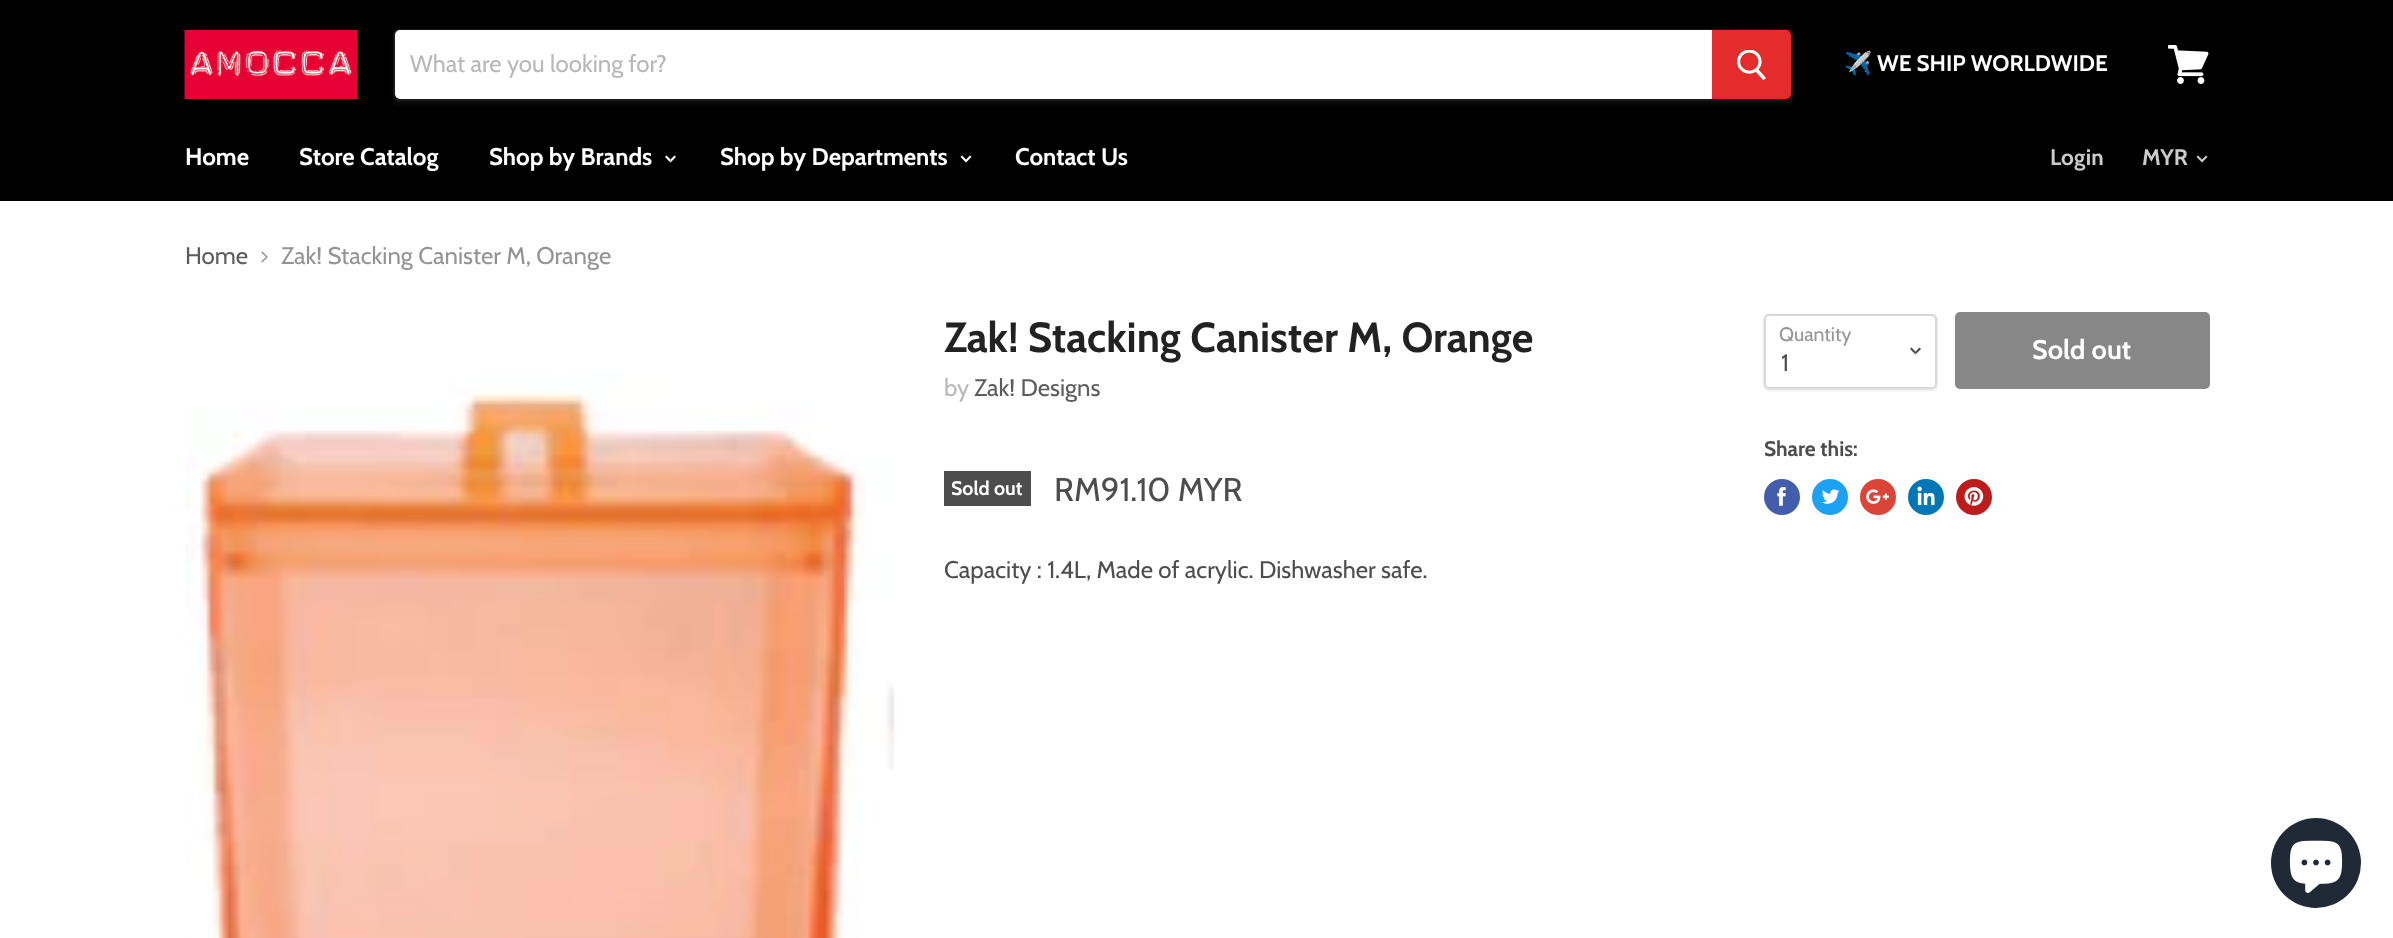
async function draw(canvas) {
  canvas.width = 2393;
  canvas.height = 938;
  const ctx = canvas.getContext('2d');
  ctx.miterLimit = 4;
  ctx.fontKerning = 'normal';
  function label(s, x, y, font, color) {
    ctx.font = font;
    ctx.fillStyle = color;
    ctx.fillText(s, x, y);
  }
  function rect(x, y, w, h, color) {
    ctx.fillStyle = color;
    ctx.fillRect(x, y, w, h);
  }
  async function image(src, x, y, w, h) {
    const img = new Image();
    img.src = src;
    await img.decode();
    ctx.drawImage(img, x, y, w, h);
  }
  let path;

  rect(0, 0, 2393, 938, '#fff');
  rect(0, 0, 2393, 201, '#000');
  await image('assets/img1.png', 184, 30, 173, 69);
  ctx.save();
  path = new Path2D('M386 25H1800V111H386ZM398 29H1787C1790.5 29 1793 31.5 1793 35V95C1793 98.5 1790.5 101 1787 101H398C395 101 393 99 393 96V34C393 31 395 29 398 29Z');
  ctx.clip(path, 'evenodd');
  ctx.fillStyle = '#7f7f7f1c';
  ctx.filter = 'blur(2px)';
  ctx.beginPath();
  ctx.roundRect(393, 32, 1400, 72, 6);
  ctx.fill();
  ctx.filter = 'none';
  ctx.restore();
  ctx.beginPath();
  ctx.roundRect(394, 30, 1398, 70, [4, 5, 5, 4]);
  ctx.strokeStyle = '#7f7f7f33';
  ctx.lineWidth = 2;
  ctx.stroke();
  ctx.fillStyle = '#fff';
  ctx.beginPath();
  ctx.roundRect(395, 30, 1317, 69, [5, 0, 0, 5]);
  ctx.fill();
  label('What are you looking for?', 410, 72, '24px Cabin', '#b8b8b8');
  ctx.fillStyle = '#e32c2b';
  ctx.beginPath();
  ctx.roundRect(1713, 31, 77, 67, [0, 4, 4, 0]);
  ctx.fill();
  ctx.strokeStyle = '#e32c2b';
  ctx.stroke();
  await image('assets/img2.png', 1737, 50, 29, 31);
  label('✈️', 1844, 71, 'bold 22.5px Noto Color Emoji', '#fff');
  label('WE SHIP WORLDWIDE', 1877, 71, 'bold 22.5px Cabin', '#fff');
  await image('assets/img3.png', 2168, 45, 41, 39);
  label('Home', 185, 165, 'bold 24px Cabin', '#fff');
  label('Store Catalog', 299, 165, 'bold 24px Cabin', '#fff');
  label('Shop by Brands', 489, 165, 'bold 24px Cabin', '#fff');
  await image('assets/img4.png', 665, 155, 11, 8);
  label('Shop by Departments', 720, 165, 'bold 24px Cabin', '#fff');
  await image('assets/img5.png', 960, 155, 12, 8);
  label('Contact Us', 1015, 165, 'bold 24px Cabin', '#fff');
  label('Login', 2050, 165, 'bold 22.5px Cabin', '#ccc');
  label('MYR', 2142, 165, 'bold 22.5px Cabin', '#ccc');
  await image('assets/img6.png', 2196, 155, 12, 8);
  label('Home', 185, 264, '24px Cabin', '#5c5c5c');
  await image('assets/img7.png', 261, 251, 7, 12);
  label('Zak! Stacking Canister M, Orange', 281, 264, '24px Cabin', '#949494');
  await image('assets/img8.png', 185, 373, 709, 565);
  label('Zak! Stacking Canister M, Orange', 944, 352, 'bold 42px Cabin', '#222');
  label('by', 944, 396, '24px Cabin', '#b8b8b8');
  label('Zak! Designs', 974, 396, '24px Cabin', '#5c5c5c');
  rect(944, 471, 87, 35, '#4d4d4d');
  label('Sold out', 951, 495, 'bold 19.5px Cabin', '#fff');
  label('RM91.10 MYR', 1054, 501, '33px Cabin', '#4d4d4d');
  label('Capacity : 1.4L, Made of acrylic. Dishwasher safe.', 944, 578, '24px Cabin', '#4d4d4d');
  ctx.save();
  path = new Path2D('M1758 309H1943V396H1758ZM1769 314H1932C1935 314 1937 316 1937 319V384C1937 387 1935 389 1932 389H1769C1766 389 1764 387 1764 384V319C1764 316 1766 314 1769 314Z');
  ctx.clip(path, 'evenodd');
  ctx.fillStyle = '#00000026';
  ctx.filter = 'blur(1.5px)';
  ctx.beginPath();
  ctx.roundRect(1764, 315, 173, 75, 5);
  ctx.fill();
  ctx.filter = 'none';
  ctx.restore();
  ctx.beginPath();
  ctx.roundRect(1765, 315, 171, 73, 4);
  ctx.strokeStyle = '#7f7f7f4d';
  ctx.stroke();
  label('Quantity', 1779, 341, '19.5px Cabin', '#949494');
  await image('assets/img9.png', 1910, 347, 11, 8);
  label('1', 1781, 371, '24px Cabin', '#4d4d4d');
  ctx.fillStyle = '#878787';
  ctx.beginPath();
  ctx.roundRect(1956, 313, 253, 75, 4);
  ctx.fill();
  ctx.strokeStyle = '#878787';
  ctx.stroke();
  label('Sold out', 2032, 359, 'bold 27px Cabin', '#fff');
  label('Share this:', 1764, 456, 'bold 21px Cabin', '#4d4d4d');
  ctx.fillStyle = '#425dab';
  ctx.beginPath();
  ctx.arc(1782, 497, 18, 0, 2 * Math.PI);
  ctx.fill();
  await image('assets/img10.png', 1777, 487, 9, 19);
  ctx.fillStyle = '#1da1f2';
  ctx.beginPath();
  ctx.arc(1830, 497, 18, 0, 2 * Math.PI);
  ctx.fill();
  await image('assets/img11.png', 1821, 489, 19, 15);
  ctx.fillStyle = '#db4437';
  ctx.beginPath();
  ctx.arc(1878, 497, 18, 0, 2 * Math.PI);
  ctx.fill();
  await image('assets/img12.png', 1866, 489, 23, 15);
  ctx.fillStyle = '#0077b5';
  ctx.beginPath();
  ctx.arc(1926, 497, 18, 0, 2 * Math.PI);
  ctx.fill();
  await image('assets/img13.png', 1917, 486, 18, 20);
  ctx.fillStyle = '#bd1c1c';
  ctx.beginPath();
  ctx.arc(1974, 497, 18, 0, 2 * Math.PI);
  ctx.fill();
  await image('assets/img14.png', 1964, 487, 20, 19);
  ctx.fillStyle = '#202a36';
  ctx.beginPath();
  ctx.arc(2316, 863, 45, 0, 2 * Math.PI);
  ctx.fill();
  await image('assets/img15.png', 2289, 840, 54, 53);
}

draw(document.querySelector('canvas'));
